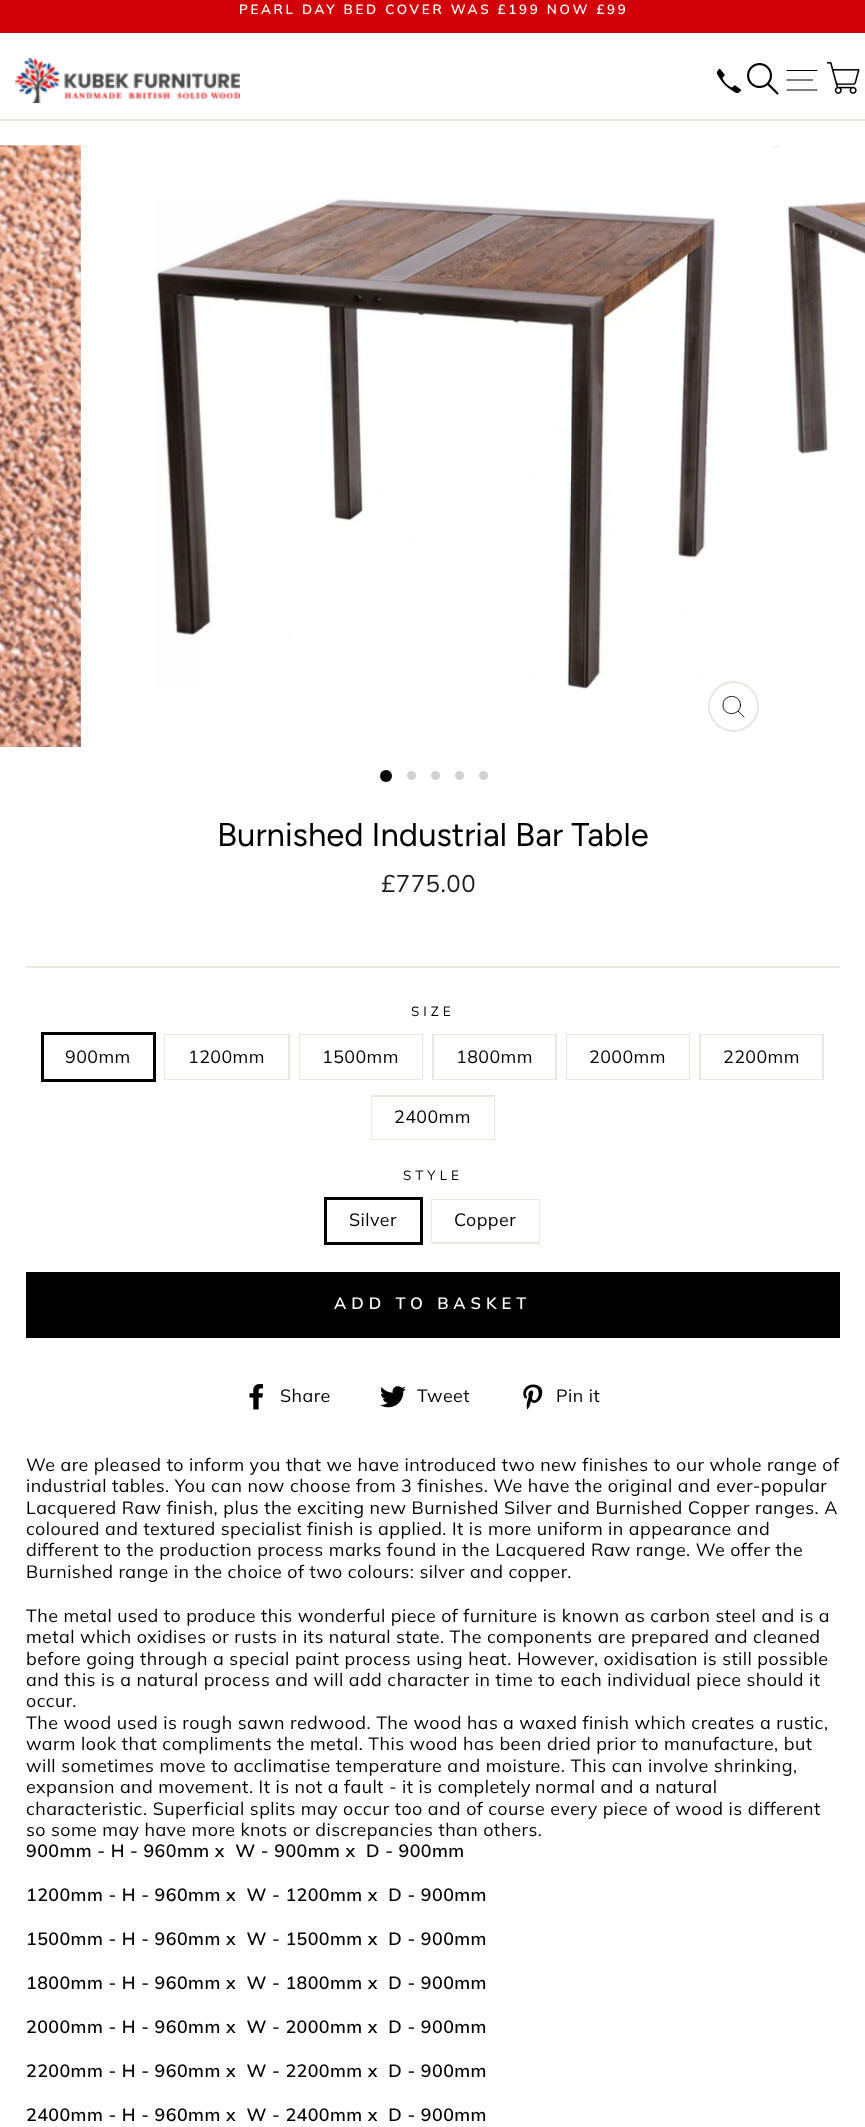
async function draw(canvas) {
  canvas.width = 865;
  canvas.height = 2127;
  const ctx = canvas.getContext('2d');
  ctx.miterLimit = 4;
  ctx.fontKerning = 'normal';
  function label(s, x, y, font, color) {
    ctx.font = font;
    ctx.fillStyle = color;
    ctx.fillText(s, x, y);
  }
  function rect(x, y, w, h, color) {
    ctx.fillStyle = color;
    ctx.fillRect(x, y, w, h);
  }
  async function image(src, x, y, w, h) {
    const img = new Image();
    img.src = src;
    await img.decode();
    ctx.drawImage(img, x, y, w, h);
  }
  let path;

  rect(0, 0, 865, 2127, '#fff');
  rect(0, 0, 865, 33, '#d20009');
  ctx.letterSpacing = '2.7px';
  label('PEARL DAY BED COVER WAS £199 NOW £99', 239, 14, '600 13.4px Muli', '#fff');
  ctx.fillStyle = '#00000033';
  ctx.filter = 'blur(1px)';
  ctx.beginPath();
  ctx.rect(0, 33, 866, 113);
  ctx.fill();
  ctx.filter = 'none';
  rect(0, 33, 865, 113, '#fff');
  await image('assets/img1.png', 15, 58, 225, 45);
  await image('assets/img2.png', 716, 68, 26, 26);
  await image('assets/img3.png', 747, 63, 32, 32);
  path = new Path2D('M787 70.5H817M787 80H812.5M787 90H817');
  ctx.strokeStyle = '#000';
  ctx.lineWidth = 1.2;
  ctx.lineCap = 'round';
  ctx.lineJoin = 'round';
  ctx.stroke(path);
  await image('assets/img4.png', 827, 62, 33, 32);
  rect(0, 119, 865, 2, '#e8e8e1');
  await image('assets/img5.png', 0, 145, 81, 602);
  rect(87, 146, 687, 2, '#fff');
  await image('assets/img6.png', 155, 198, 561, 491);
  ctx.beginPath();
  ctx.arc(733.5, 706.5, 24.5, 0, 2 * Math.PI);
  ctx.strokeStyle = '#e8e8e1';
  ctx.lineWidth = 2;
  ctx.stroke();
  path = new Path2D('M740.5 705C740.5 716.5 723 716.5 723 705C723 693.5 740.5 693.5 740.5 705ZM744 717L738 711');
  ctx.strokeStyle = '#000';
  ctx.lineWidth = 0.9;
  ctx.stroke(path);
  rect(780, 146, 85, 2, '#fff');
  await image('assets/img7.png', 787, 201, 78, 254);
  ctx.fillStyle = '#000';
  ctx.beginPath();
  ctx.arc(386, 776, 6, 0, 2 * Math.PI);
  ctx.fill();
  ctx.fillStyle = '#d1d1d1';
  ctx.beginPath();
  ctx.arc(411.5, 775.5, 4.5, 0, 2 * Math.PI);
  ctx.fill();
  ctx.beginPath();
  ctx.arc(435.5, 775.5, 4.5, 0, 2 * Math.PI);
  ctx.fill();
  ctx.beginPath();
  ctx.arc(459.5, 775.5, 4.5, 0, 2 * Math.PI);
  ctx.fill();
  ctx.beginPath();
  ctx.arc(483.5, 775.5, 4.5, 0, 2 * Math.PI);
  ctx.fill();
  ctx.letterSpacing = '0px';
  label('Burnished Industrial Bar Table', 217, 846, '32.9px Figtree', '#000');
  ctx.letterSpacing = '0.45px';
  label('£775.00', 381, 892, '24px Muli', '#1c1d1d');
  rect(26, 966, 814, 2, '#e8e8e1');
  ctx.letterSpacing = '4px';
  label('SIZE', 411, 1016, '13.4px Muli', '#000');
  ctx.lineWidth = 3;
  ctx.lineJoin = 'miter';
  ctx.strokeRect(42.5, 1033.5, 112, 47);
  ctx.letterSpacing = '0.45px';
  label('900mm', 65, 1063, '17.85px Muli', '#000');
  ctx.strokeStyle = '#e8e8e1';
  ctx.lineWidth = 2;
  ctx.strokeRect(165, 1035, 124, 44);
  rect(165, 1035, 123, 44, '#fff');
  label('1200mm', 188, 1063, '17.85px Muli', '#000');
  ctx.strokeRect(300, 1035, 122, 44);
  rect(300, 1035, 122, 44, '#fff');
  label('1500mm', 322, 1063, '17.85px Muli', '#000');
  ctx.strokeRect(433, 1035, 123, 44);
  rect(434, 1035, 121, 44, '#fff');
  label('1800mm', 456, 1063, '17.85px Muli', '#000');
  ctx.strokeRect(567, 1035, 122, 44);
  rect(567, 1035, 122, 44, '#fff');
  label('2000mm', 589, 1063, '17.85px Muli', '#000');
  ctx.strokeRect(700, 1035, 123, 44);
  rect(701, 1035, 121, 44, '#fff');
  label('2200mm', 723, 1063, '17.85px Muli', '#000');
  ctx.strokeRect(372, 1096, 122, 43);
  rect(372, 1097, 122, 42, '#fff');
  label('2400mm', 394, 1123, '17.85px Muli', '#000');
  ctx.letterSpacing = '4px';
  label('STYLE', 403, 1180, '13.4px Muli', '#000');
  ctx.strokeStyle = '#000';
  ctx.lineWidth = 3;
  ctx.strokeRect(325.5, 1198.5, 96, 45);
  ctx.letterSpacing = '0.45px';
  label('Silver', 349, 1226, '17.85px Muli', '#000');
  ctx.strokeStyle = '#e8e8e1';
  ctx.lineWidth = 2;
  ctx.strokeRect(432, 1200, 107, 43);
  rect(432, 1200, 107, 42, '#fff');
  label('Copper', 454, 1226, '17.85px Muli', '#000');
  rect(26, 1272, 814, 66, '#000');
  ctx.letterSpacing = '5px';
  label('ADD TO BASKET', 334, 1309, '600 16.5px Muli', '#fff');
  await image('assets/img8.png', 249, 1384, 14, 26);
  ctx.letterSpacing = '0.45px';
  label('Share', 280, 1402, '17.85px Muli', '#000');
  await image('assets/img9.png', 380, 1386, 26, 22);
  label('Tweet', 417, 1402, '17.85px Muli', '#000');
  await image('assets/img10.png', 523, 1384, 20, 26);
  label('Pin it', 556, 1402, '17.85px Muli', '#000');
  label('We are pleased to inform you that we have introduced two new finishes to our whole range of', 26, 1471, '17.85px Muli', '#000');
  label('industrial tables. You can now choose from 3 finishes. We have the original and ever-popular', 26, 1492, '17.85px Muli', '#000');
  label('Lacquered Raw finish, plus the exciting new Burnished Silver and Burnished Copper ranges. A', 26, 1514, '17.85px Muli', '#000');
  label('coloured and textured specialist finish is applied. It is more uniform in appearance and', 26, 1535, '17.85px Muli', '#000');
  label('different to the production process marks found in the Lacquered Raw range. We offer the', 26, 1556, '17.85px Muli', '#000');
  label('Burnished range in the choice of two colours: silver and copper.', 26, 1578, '17.85px Muli', '#000');
  label('The metal used to produce this wonderful piece of furniture is known as carbon steel and is a', 26, 1622, '17.85px Muli', '#000');
  label('metal which oxidises or rusts in its natural state. The components are prepared and cleaned', 26, 1643, '17.85px Muli', '#000');
  label('before going through a special paint process using heat. However, oxidisation is still possible', 26, 1665, '17.85px Muli', '#000');
  label('and this is a natural process and will add character in time to each individual piece should it', 26, 1686, '17.85px Muli', '#000');
  label('occur.', 26, 1707, '17.85px Muli', '#000');
  label('The wood used is rough sawn redwood. The wood has', 26, 1729, '17.85px Muli', '#000');
  label('a waxed finish which creates a rustic,', 503, 1729, '17.85px Muli', '#000');
  label('warm look that compliments the metal. This wood has been dried prior to manufacture, but', 26, 1750, '17.85px Muli', '#000');
  label('will sometimes move to acclimatise temperature and moisture. This can involve shrinking,', 26, 1772, '17.85px Muli', '#000');
  label('expansion and movement. It is not a fault - it is completely', 26, 1793, '17.85px Muli', '#000');
  label('normal and a natural', 535, 1793, '17.85px Muli', '#000');
  label('characteristic. Superficial splits may occur too and of course every piece of wood is different', 26, 1815, '17.85px Muli', '#000');
  label('so some may have more knots or discrepancies than others.', 26, 1836, '17.85px Muli', '#000');
  label('900mm - H - 960mm x  W - 900mm x  D - 900mm', 26, 1857, '600 17.85px Muli', '#000');
  label('1200mm - H - 960mm x  W - 1200mm x  D - 900mm', 26, 1901, '600 17.85px Muli', '#000');
  label('1500mm - H - 960mm x  W - 1500mm x  D - 900mm', 26, 1945, '600 17.85px Muli', '#000');
  label('1800mm - H - 960mm x  W - 1800mm x  D - 900mm', 26, 1989, '600 17.85px Muli', '#000');
  label('2000mm - H - 960mm x  W - 2000mm x  D - 900mm', 26, 2033, '600 17.85px Muli', '#000');
  label('2200mm - H - 960mm x  W - 2200mm x  D - 900mm', 26, 2077, '600 17.85px Muli', '#000');
  label('2400mm - H - 960mm x  W - 2400mm x  D - 900mm', 26, 2121, '600 17.85px Muli', '#000');
}

draw(document.querySelector('canvas'));
